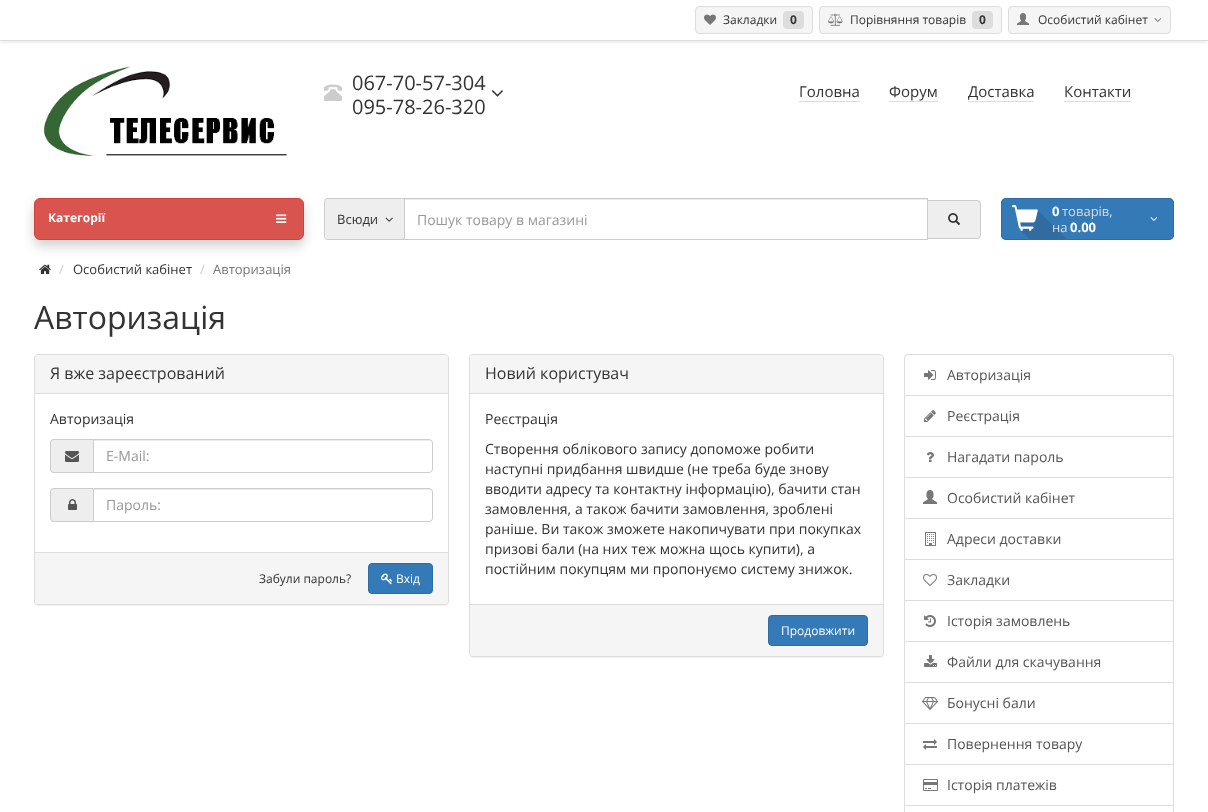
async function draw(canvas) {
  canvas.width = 1208;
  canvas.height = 812;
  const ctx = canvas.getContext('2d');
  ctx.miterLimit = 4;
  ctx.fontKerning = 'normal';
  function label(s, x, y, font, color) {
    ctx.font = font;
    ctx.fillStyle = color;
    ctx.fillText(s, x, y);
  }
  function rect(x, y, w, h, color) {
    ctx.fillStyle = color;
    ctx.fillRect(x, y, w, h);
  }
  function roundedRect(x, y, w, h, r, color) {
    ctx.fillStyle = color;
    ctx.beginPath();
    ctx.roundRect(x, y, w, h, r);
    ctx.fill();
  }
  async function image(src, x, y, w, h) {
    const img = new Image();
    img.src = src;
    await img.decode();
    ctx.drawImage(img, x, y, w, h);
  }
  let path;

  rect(0, 0, 1208, 812, '#fff');
  ctx.save();
  ctx.beginPath();
  ctx.rect(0, 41, 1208, 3);
  ctx.clip();
  ctx.fillStyle = '#0000001a';
  ctx.filter = 'blur(2.5px)';
  ctx.beginPath();
  ctx.rect(0, 1, 1208, 41);
  ctx.fill();
  ctx.filter = 'none';
  ctx.restore();
  rect(0, 40, 1208, 1, '#ddd');
  ctx.fillStyle = '#f5f5f5';
  ctx.beginPath();
  ctx.roundRect(695.5, 6.5, 117, 27, 3.5);
  ctx.fill();
  ctx.strokeStyle = '#ddd';
  ctx.stroke();
  await image('assets/img1.png', 704, 14, 12, 11);
  label('Закладки', 723, 24, '12px Open Sans', '#333');
  roundedRect(783, 11, 21, 18, 4, '#ddd');
  label('0', 790, 24, 'bold 12px Open Sans', '#333');
  ctx.fillStyle = '#f5f5f5';
  ctx.beginPath();
  ctx.roundRect(819.5, 6.5, 182, 27, 3.5);
  ctx.fill();
  ctx.stroke();
  await image('assets/img2.png', 828, 13, 15, 13);
  label('Порівняння товарів', 850, 24, '12px Open Sans', '#333');
  roundedRect(972, 11, 21, 18, 4, '#ddd');
  label('0', 979, 24, 'bold 12px Open Sans', '#333');
  ctx.fillStyle = '#f5f5f5';
  ctx.beginPath();
  ctx.roundRect(1008.5, 6.5, 162, 27, 3.5);
  ctx.fill();
  ctx.stroke();
  await image('assets/img3.png', 1017, 13, 12, 12);
  label('Особистий кабінет', 1038, 24, '12px Open Sans', '#333');
  await image('assets/img4.png', 1154, 18, 8, 4);
  await image('assets/img5.png', 43, 66, 244, 90);
  await image('assets/img6.png', 324, 84, 18, 17);
  label('067-70-57-304', 352, 90, '20px Open Sans', '#333');
  label('095-78-26-320', 352, 114, '20px Open Sans', '#333');
  await image('assets/img7.png', 491, 90, 12, 7);
  label('Головна', 799, 97, '15px Open Sans', '#333');
  rect(799, 101, 61, 1, '#ddd');
  label('Форум', 889, 97, '15px Open Sans', '#333');
  rect(889, 101, 49, 1, '#ddd');
  label('Доставка', 968, 97, '15px Open Sans', '#333');
  rect(968, 101, 66, 1, '#ddd');
  label('Контакти', 1064, 97, '15px Open Sans', '#333');
  rect(1064, 101, 67, 1, '#ddd');
  await image('assets/img13.png', 39, 264, 12, 10);
  ctx.fillStyle = '#0000002e';
  ctx.filter = 'blur(6px)';
  ctx.beginPath();
  ctx.roundRect(34, 204, 270, 42, 6);
  ctx.fill();
  ctx.filter = 'none';
  ctx.fillStyle = '#d9534f';
  ctx.beginPath();
  ctx.roundRect(34.5, 198.5, 269, 41, 5.5);
  ctx.fill();
  ctx.strokeStyle = '#d43f3a';
  ctx.stroke();
  label('Категорії', 48, 222, 'bold 12px Open Sans', '#fff');
  await image('assets/img8.png', 276, 214, 11, 9);
  ctx.fillStyle = '#eee';
  ctx.beginPath();
  ctx.roundRect(325, 199, 80, 40, [3, 0, 0, 3]);
  ctx.fill();
  ctx.fillStyle = '#ccc';
  path = new Path2D('M328 198H405V240H328C326 240 324 238 324 236V202C324 200 326 198 328 198ZM328 199H405V239H328C326 239 325 238 325 236V202C325 200 326 199 328 199Z');
  ctx.fill(path, 'evenodd');
  label('Всюди', 337, 224, '13px Open Sans', '#333');
  await image('assets/img9.png', 385, 217, 8, 5);
  rect(405, 199, 522, 1, '#ececec');
  ctx.strokeStyle = '#ccc';
  ctx.strokeRect(404.5, 198.5, 523, 41);
  label('Пошук товару в магазині', 417, 225, '14px Open Sans', '#999');
  ctx.fillStyle = '#eee';
  ctx.beginPath();
  ctx.roundRect(927.5, 200.5, 53, 38, [0, 3.5, 3.5, 0]);
  ctx.fill();
  ctx.stroke();
  await image('assets/img10.png', 948, 213, 12, 12);
  roundedRect(1001, 198, 173, 42, 5, '#337ab7');
  await image('assets/img11.png', 1012, 205, 55, 34);
  ctx.beginPath();
  ctx.roundRect(1001.5, 198.5, 172, 41, 4.5);
  ctx.strokeStyle = '#2e6da4';
  ctx.stroke();
  label('0', 1052, 216, 'bold 13px Open Sans', '#fff');
  label('товарів,', 1062, 216, '13px Open Sans', '#ddd');
  label('на', 1052, 232, '13px Open Sans', '#ddd');
  label('0.00', 1070, 232, 'bold 13px Open Sans', '#fff');
  await image('assets/img12.png', 1150, 217, 8, 4);
  label('/', 59, 274, '13px Open Sans', '#ccc');
  label('Особистий кабінет', 73, 274, '13px Open Sans', '#333');
  label('/', 200, 274, '13px Open Sans', '#ccc');
  label('Авторизація', 213, 274, '13px Open Sans', '#777');
  label('Авторизація', 34, 329, '32px Open Sans', '#333');
  ctx.fillStyle = '#0000000d';
  ctx.filter = 'blur(0.5px)';
  ctx.beginPath();
  ctx.roundRect(34, 355, 415, 251, 4);
  ctx.fill();
  ctx.filter = 'none';
  ctx.fillStyle = '#fff';
  ctx.beginPath();
  ctx.roundRect(34.5, 354.5, 414, 250, 3.5);
  ctx.fill();
  ctx.strokeStyle = '#ddd';
  ctx.stroke();
  ctx.fillStyle = '#f5f5f5';
  ctx.beginPath();
  ctx.roundRect(35, 355, 413, 39, [3, 3, 0, 0]);
  ctx.fill();
  rect(35, 393, 413, 1, '#ddd');
  label('Я вже зареєстрований', 50, 379, '16px Open Sans', '#333');
  label('Авторизація', 50, 424, '14px Open Sans', '#333');
  ctx.fillStyle = '#eee';
  ctx.beginPath();
  ctx.roundRect(50, 439, 43, 34, [4, 0, 0, 4]);
  ctx.fill();
  ctx.fillStyle = '#ccc';
  path = new Path2D('M54 439H93V473H54C52 473 50 471 50 469V443C50 441 52 439 54 439ZM54 440H93V472H54C52 472 51 471 51 469V443C51 441 52 440 54 440Z');
  ctx.fill(path, 'evenodd');
  await image('assets/img14.png', 65, 451, 14, 11);
  ctx.fillStyle = '#ececec';
  path = new Path2D('M94 441H429C431 441 432 442 432 444C432 442 431 440 429 440H94Z');
  ctx.fill(path);
  ctx.beginPath();
  ctx.roundRect(93.5, 439.5, 339, 33, [0, 3.5, 3.5, 0]);
  ctx.strokeStyle = '#ccc';
  ctx.stroke();
  label('E-Mail:', 106, 461, '14px Open Sans', '#999');
  ctx.fillStyle = '#eee';
  ctx.beginPath();
  ctx.roundRect(50, 488, 43, 34, [4, 0, 0, 4]);
  ctx.fill();
  ctx.fillStyle = '#ccc';
  path = new Path2D('M54 488H93V522H54C52 522 50 520 50 518V492C50 490 52 488 54 488ZM54 489H93V521H54C52 521 51 520 51 518V492C51 490 52 489 54 489Z');
  ctx.fill(path, 'evenodd');
  await image('assets/img15.png', 68, 499, 9, 11);
  ctx.fillStyle = '#ececec';
  path = new Path2D('M94 490H429C431 490 432 491 432 493C432 491 431 489 429 489H94Z');
  ctx.fill(path);
  ctx.beginPath();
  ctx.roundRect(93.5, 488.5, 339, 33, [0, 3.5, 3.5, 0]);
  ctx.stroke();
  label('Пароль:', 106, 510, '14px Open Sans', '#999');
  ctx.fillStyle = '#f5f5f5';
  ctx.beginPath();
  ctx.roundRect(35, 552, 413, 52, [0, 0, 3, 3]);
  ctx.fill();
  rect(35, 552, 413, 1, '#ddd');
  label('Забули пароль?', 259, 583, '12px Open Sans', '#333');
  ctx.fillStyle = '#337ab7';
  ctx.beginPath();
  ctx.roundRect(368.5, 563.5, 64, 30, 3.5);
  ctx.fill();
  ctx.strokeStyle = '#2e6da4';
  ctx.stroke();
  await image('assets/img16.png', 381, 573, 12, 12);
  label('Вхід', 396, 583, '12px Open Sans', '#fff');
  ctx.fillStyle = '#0000000d';
  ctx.filter = 'blur(0.5px)';
  ctx.beginPath();
  ctx.roundRect(469, 355, 415, 303, 4);
  ctx.fill();
  ctx.filter = 'none';
  ctx.fillStyle = '#fff';
  ctx.beginPath();
  ctx.roundRect(469.5, 354.5, 414, 302, 3.5);
  ctx.fill();
  ctx.strokeStyle = '#ddd';
  ctx.stroke();
  ctx.fillStyle = '#f5f5f5';
  ctx.beginPath();
  ctx.roundRect(470, 355, 413, 39, [3, 3, 0, 0]);
  ctx.fill();
  rect(470, 393, 413, 1, '#ddd');
  label('Новий користувач', 485, 379, '16px Open Sans', '#333');
  label('Реєстрація', 485, 424, '14px Open Sans', '#333');
  label('Створення облікового запису допоможе робити', 485, 454, '14px Open Sans', '#333');
  label('наступні придбання швидше (не треба буде знову', 485, 474, '14px Open Sans', '#333');
  label('вводити адресу та контактну інформацію), бачити стан', 485, 494, '14px Open Sans', '#333');
  label('замовлення, а також бачити замовлення, зроблені', 485, 514, '14px Open Sans', '#333');
  label('раніше. Ви також зможете накопичувати при покупках', 485, 534, '14px Open Sans', '#333');
  label('призові бали (на них теж можна щось купити), а', 485, 554, '14px Open Sans', '#333');
  label('постійним покупцям ми пропонуємо систему знижок.', 485, 574, '14px Open Sans', '#333');
  ctx.fillStyle = '#f5f5f5';
  ctx.beginPath();
  ctx.roundRect(470, 604, 413, 52, [0, 0, 3, 3]);
  ctx.fill();
  rect(470, 604, 413, 1, '#ddd');
  ctx.fillStyle = '#337ab7';
  ctx.beginPath();
  ctx.roundRect(768.5, 615.5, 99, 30, 3.5);
  ctx.fill();
  ctx.strokeStyle = '#2e6da4';
  ctx.stroke();
  label('Продовжити', 781, 635, '12px Open Sans', '#fff');
  ctx.beginPath();
  ctx.roundRect(904.5, 354.5, 269, 41, [3.5, 3.5, 0, 0]);
  ctx.strokeStyle = '#ddd';
  ctx.stroke();
  await image('assets/img17.png', 924, 370, 12, 10);
  label('Авторизація', 947, 380, '14px Open Sans', '#555');
  ctx.strokeRect(904.5, 395.5, 269, 41);
  await image('assets/img18.png', 924, 410, 12, 12);
  label('Реєстрація', 947, 421, '14px Open Sans', '#555');
  ctx.strokeRect(904.5, 436.5, 269, 41);
  await image('assets/img19.png', 926, 452, 8, 10);
  label('Нагадати пароль', 947, 462, '14px Open Sans', '#555');
  ctx.strokeRect(904.5, 477.5, 269, 41);
  await image('assets/img20.png', 923, 490, 14, 14);
  label('Особистий кабінет', 947, 503, '14px Open Sans', '#555');
  ctx.strokeRect(904.5, 518.5, 269, 41);
  await image('assets/img21.png', 925, 532, 11, 14);
  label('Адреси доставки', 947, 544, '14px Open Sans', '#555');
  ctx.strokeRect(904.5, 559.5, 269, 41);
  await image('assets/img22.png', 923, 574, 14, 12);
  label('Закладки', 947, 585, '14px Open Sans', '#555');
  ctx.strokeRect(904.5, 600.5, 269, 41);
  await image('assets/img23.png', 924, 615, 12, 12);
  label('Історія замовлень', 947, 626, '14px Open Sans', '#555');
  ctx.strokeRect(904.5, 641.5, 269, 41);
  await image('assets/img24.png', 924, 655, 13, 12);
  label('Файли для скачування', 947, 667, '14px Open Sans', '#555');
  ctx.strokeRect(904.5, 682.5, 269, 41);
  await image('assets/img25.png', 922, 697, 16, 13);
  label('Бонусні бали', 947, 708, '14px Open Sans', '#555');
  ctx.strokeRect(904.5, 723.5, 269, 41);
  await image('assets/img26.png', 923, 739, 14, 11);
  label('Повернення товару', 947, 749, '14px Open Sans', '#555');
  ctx.strokeRect(904.5, 764.5, 269, 41);
  await image('assets/img27.png', 923, 779, 15, 12);
  label('Історія платежів', 947, 790, '14px Open Sans', '#555');
  ctx.strokeRect(904.5, 805.5, 269, 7);
}

draw(document.querySelector('canvas'));
